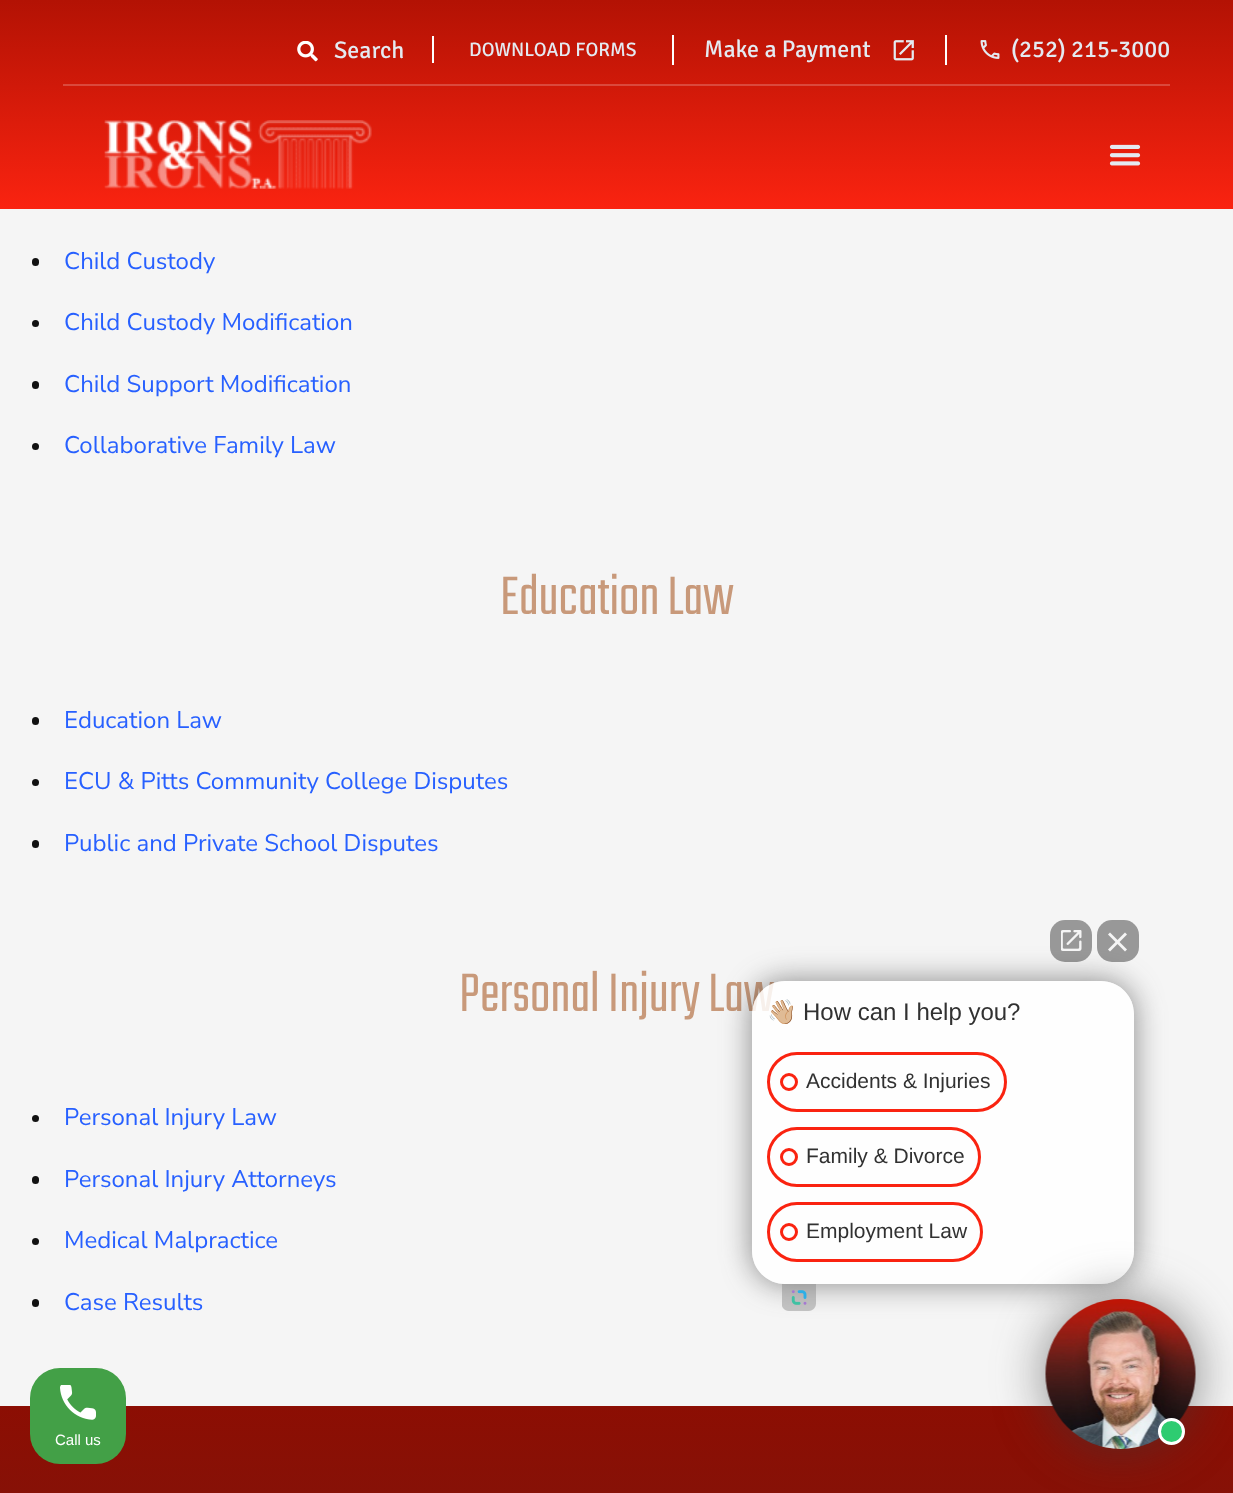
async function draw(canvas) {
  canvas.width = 1233;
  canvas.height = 1493;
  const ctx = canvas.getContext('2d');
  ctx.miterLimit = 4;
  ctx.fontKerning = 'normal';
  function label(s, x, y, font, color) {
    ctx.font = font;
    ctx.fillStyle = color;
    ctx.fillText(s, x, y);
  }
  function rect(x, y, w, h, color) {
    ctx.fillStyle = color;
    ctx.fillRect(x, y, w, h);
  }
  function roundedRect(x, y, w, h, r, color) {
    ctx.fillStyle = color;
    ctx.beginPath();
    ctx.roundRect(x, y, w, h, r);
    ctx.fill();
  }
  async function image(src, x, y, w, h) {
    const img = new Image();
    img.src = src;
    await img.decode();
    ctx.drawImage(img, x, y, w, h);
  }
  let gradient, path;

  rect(0, 0, 1233, 1493, '#f5f5f5');
  gradient = ctx.createLinearGradient(617, 0, 617, 209);
  gradient.addColorStop(0, '#b31204');
  gradient.addColorStop(1, '#fa2310');
  ctx.fillStyle = gradient;
  ctx.fillRect(0, 0, 1233, 209);
  rect(63, 84, 1107, 2, '#da493d');
  rect(432, 36, 2, 27, '#fff');
  await image('assets/img1.png', 297, 41, 21, 21);
  label('Search', 334, 58, '24px Signika', '#e4eaf1');
  label('DOWNLOAD FORMS', 469, 56, '19.5px Signika', '#e4eaf1');
  rect(672, 35, 2, 30, '#fff');
  label('Make a Payment', 704, 57, '24px Signika', '#e4eaf1');
  await image('assets/img2.png', 893, 40, 21, 21);
  rect(945, 35, 2, 30, '#fff');
  await image('assets/img3.png', 980, 40, 20, 19);
  label('(252) 215-3000', 1011, 57, '24px Signika', '#e4eaf1');
  await image('assets/img4.png', 104, 120, 268, 69);
  await image('assets/img5.png', 1109, 144, 32, 22);
  roundedRect(32, 258, 7, 8, 3.5, '#111');
  label('Child Custody', 64, 269, '24px Nunito Sans', '#2760ff');
  ctx.fillStyle = '#111';
  ctx.beginPath();
  ctx.arc(35.5, 323.5, 3.5, 0, 2 * Math.PI);
  ctx.fill();
  label('Child Custody Modification', 64, 330, '24px Nunito Sans', '#2760ff');
  roundedRect(32, 381, 7, 8, 3.5, '#111');
  label('Child Support Modification', 64, 392, '24px Nunito Sans', '#2760ff');
  ctx.fillStyle = '#111';
  ctx.beginPath();
  ctx.arc(35.5, 446.5, 3.5, 0, 2 * Math.PI);
  ctx.fill();
  label('Collaborative Family Law', 64, 453, '24px Nunito Sans', '#2760ff');
  label('Education Law', 500, 614, '300 60px Teko', '#c8997a');
  roundedRect(32, 717, 7, 8, 3.5, '#111');
  label('Education Law', 64, 728, '24px Nunito Sans', '#2760ff');
  ctx.fillStyle = '#111';
  ctx.beginPath();
  ctx.arc(35.5, 782.5, 3.5, 0, 2 * Math.PI);
  ctx.fill();
  label('ECU & Pitts Community College Disputes', 64, 789, '24px Nunito Sans', '#2760ff');
  roundedRect(32, 840, 7, 8, 3.5, '#111');
  label('Public and Private School Disputes', 64, 851, '24px Nunito Sans', '#2760ff');
  label('Personal Injury Law', 459, 1011, '300 60px Teko', '#c8997a');
  ctx.fillStyle = '#111';
  ctx.beginPath();
  ctx.arc(35.5, 1118.5, 3.5, 0, 2 * Math.PI);
  ctx.fill();
  label('Personal Injury Law', 64, 1125, '24px Nunito Sans', '#2760ff');
  roundedRect(32, 1176, 7, 8, 3.5, '#111');
  label('Personal Injury Attorneys', 64, 1187, '24px Nunito Sans', '#2760ff');
  ctx.fillStyle = '#111';
  ctx.beginPath();
  ctx.arc(35.5, 1241.5, 3.5, 0, 2 * Math.PI);
  ctx.fill();
  label('Medical Malpractice', 64, 1248, '24px Nunito Sans', '#2760ff');
  roundedRect(32, 1299, 7, 8, 3.5, '#111');
  label('Case Results', 64, 1310, '24px Nunito Sans', '#2760ff');
  ctx.save();
  path = new Path2D('M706 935H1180V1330H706ZM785 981H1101C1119 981 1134 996 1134 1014V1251C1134 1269 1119 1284 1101 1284H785C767 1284 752 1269 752 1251V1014C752 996 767 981 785 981Z');
  ctx.clip(path, 'evenodd');
  ctx.fillStyle = '#3c3c3c99';
  ctx.filter = 'blur(15px)';
  ctx.beginPath();
  ctx.roundRect(752, 981, 382, 303, 33);
  ctx.fill();
  ctx.filter = 'none';
  ctx.restore();
  roundedRect(752, 981, 382, 303, 33, '#ffffffd9');
  roundedRect(1050, 920, 42, 42, 15, '#27272773');
  await image('assets/img6.png', 1061, 930, 21, 21);
  roundedRect(1097, 920, 42, 42, 15, '#27272773');
  ctx.fillStyle = '#f5f5f5';
  path = new Path2D('M1108 934.5L1110 932.5L1127 949.5L1125 951.5Z');
  ctx.fill(path);
  path = new Path2D('M1125 932.5L1127 934.5L1110 951.5L1108 949.5Z');
  ctx.fill(path);
  label('👋🏼', 767, 1020, '24px Noto Color Emoji', '#313131');
  label('How can I help you?', 803, 1020, '24px Liberation Sans', '#313131');
  ctx.beginPath();
  ctx.roundRect(768.5, 1053.5, 237, 57, 28.5);
  ctx.strokeStyle = '#fa2310';
  ctx.lineWidth = 3;
  ctx.stroke();
  ctx.beginPath();
  ctx.arc(789, 1082, 7.5, 0, 2 * Math.PI);
  ctx.stroke();
  label('Accidents & Injuries', 806, 1088, '21px Liberation Sans', '#313131');
  ctx.beginPath();
  ctx.roundRect(768.5, 1128.5, 211, 57, 28.5);
  ctx.stroke();
  ctx.beginPath();
  ctx.arc(789, 1157, 7.5, 0, 2 * Math.PI);
  ctx.stroke();
  label('Family & Divorce', 806, 1163, '21px Liberation Sans', '#313131');
  ctx.beginPath();
  ctx.roundRect(768.5, 1203.5, 213, 57, 28.5);
  ctx.stroke();
  ctx.beginPath();
  ctx.arc(789, 1232, 7.5, 0, 2 * Math.PI);
  ctx.stroke();
  label('Employment Law', 806, 1238, '21px Liberation Sans', '#313131');
  await image('assets/img7.png', 782, 1284, 34, 27);
  gradient = ctx.createLinearGradient(616, 1406, 617, 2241);
  gradient.addColorStop(0, '#8c0e03');
  gradient.addColorStop(1, '#592b26');
  ctx.fillStyle = gradient;
  ctx.fillRect(0, 1406, 1233, 87);
  ctx.fillStyle = '#3c3c3c99';
  ctx.filter = 'blur(26px)';
  ctx.beginPath();
  ctx.roundRect(1046, 1299, 150, 150, 75);
  ctx.fill();
  ctx.filter = 'none';
  await image('assets/img8.png', 1045, 1299, 151, 150);
  ctx.fillStyle = '#2ecc71';
  ctx.beginPath();
  ctx.arc(1171.5, 1431.5, 12, 0, 2 * Math.PI);
  ctx.fill();
  ctx.strokeStyle = '#fff';
  ctx.stroke();
  roundedRect(30, 1368, 96, 96, 30, '#43a047');
  await image('assets/img9.png', 60, 1385, 36, 35);
  label('Call us', 55, 1445, '15px Liberation Sans', '#fff');
}

draw(document.querySelector('canvas'));
